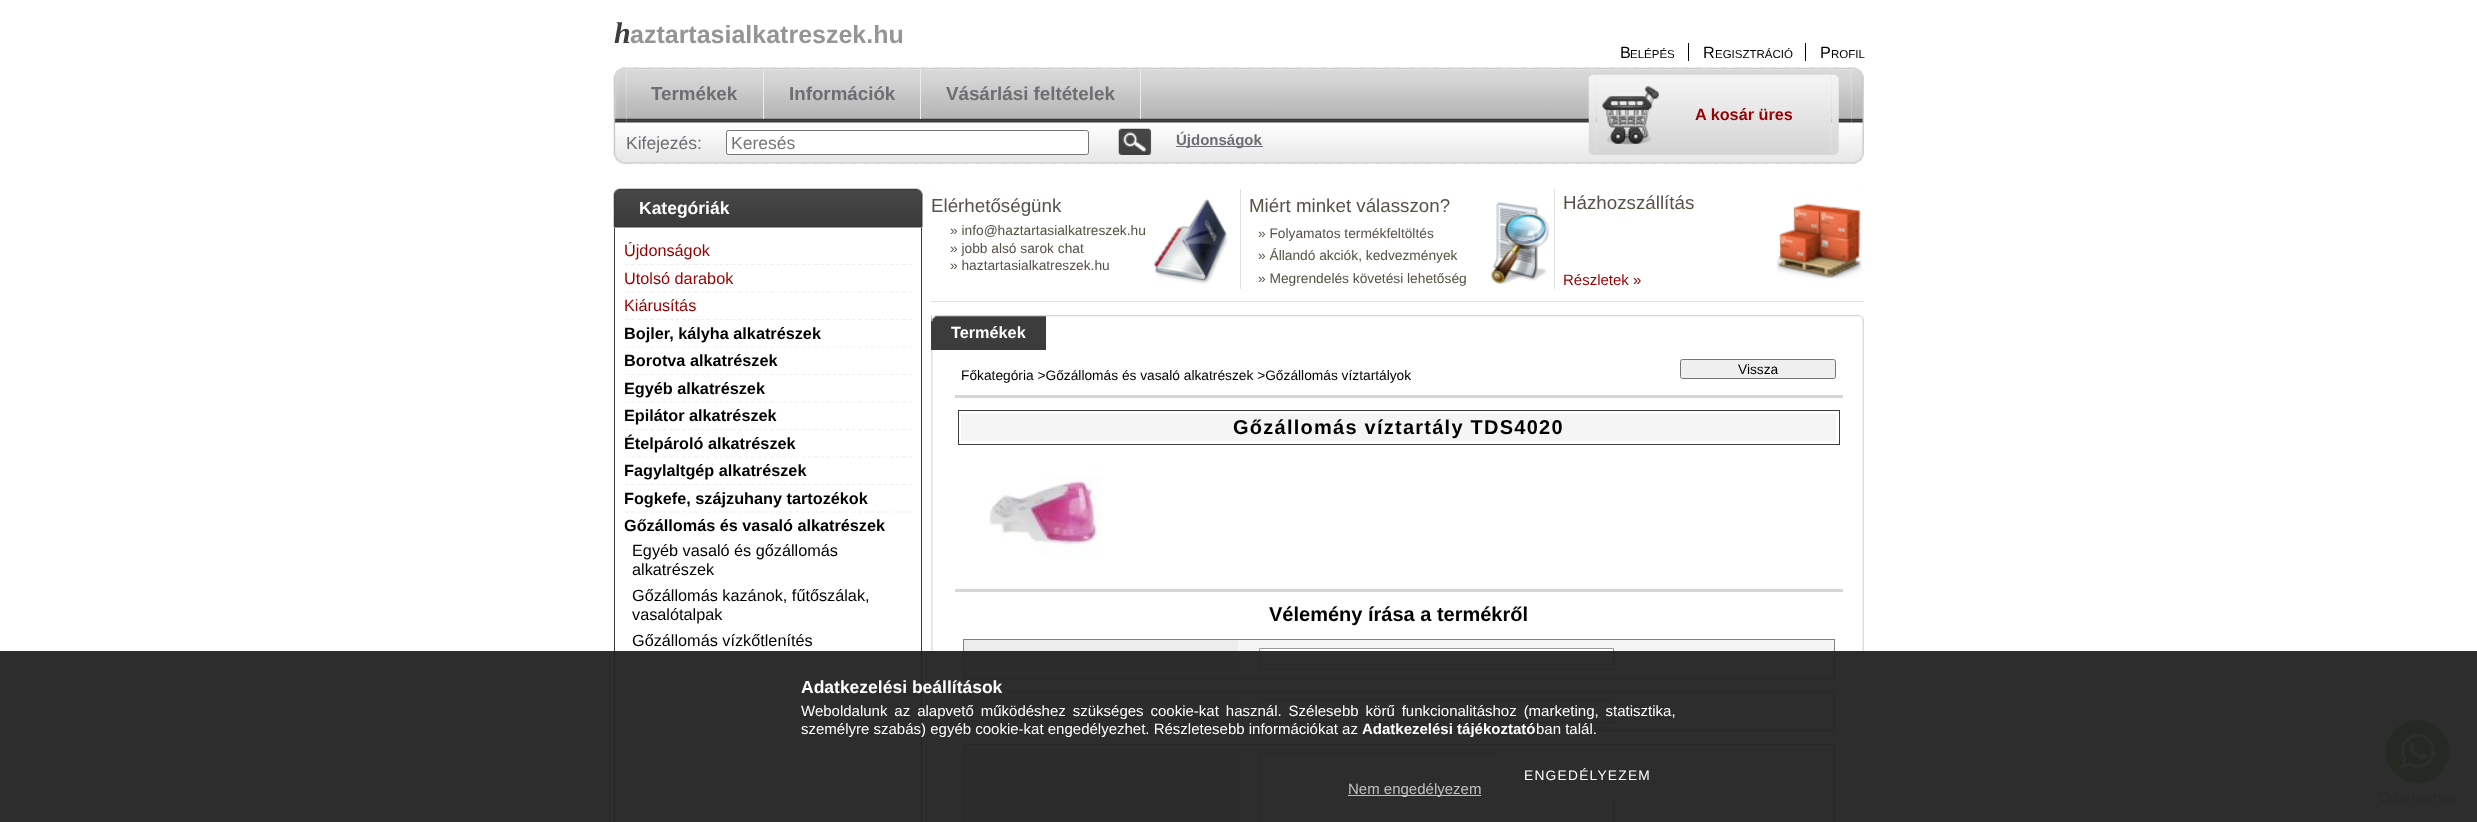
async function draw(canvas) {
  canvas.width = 2477;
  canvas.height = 822;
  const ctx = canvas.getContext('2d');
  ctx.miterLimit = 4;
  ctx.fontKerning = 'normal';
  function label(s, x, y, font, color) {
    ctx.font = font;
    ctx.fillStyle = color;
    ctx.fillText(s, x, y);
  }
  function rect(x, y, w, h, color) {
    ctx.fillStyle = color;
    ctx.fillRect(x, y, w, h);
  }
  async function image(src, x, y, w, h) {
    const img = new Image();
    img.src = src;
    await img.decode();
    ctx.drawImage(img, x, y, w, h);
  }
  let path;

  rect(0, 0, 2477, 822, '#fff');
  label('h', 614, 43, 'italic bold 30px Liberation Serif', '#3d3d3d');
  label('aztartasialkatreszek.hu', 630, 43, 'bold 25px Liberation Sans', '#959595');
  label('B', 1620, 58, '16.25px Liberation Sans', '#000');
  label('ELÉPÉS', 1630, 58, '11.5px Liberation Sans', '#000');
  rect(1688, 43, 1, 18, '#000');
  label('R', 1703, 58, '16.25px Liberation Sans', '#000');
  label('EGISZTRÁCIÓ', 1715, 58, '11.5px Liberation Sans', '#000');
  rect(1805, 43, 1, 18, '#000');
  label('P', 1820, 58, '16.25px Liberation Sans', '#000');
  label('ROFIL', 1831, 58, '11.5px Liberation Sans', '#000');
  await image('assets/img1.png', 613, 67, 14, 97);
  await image('assets/img2.png', 626, 67, 1226, 97);
  rect(763, 69, 1, 50, '#ececec');
  label('Termékek', 651, 100, 'bold 18.75px Liberation Sans', '#6c6e71');
  rect(920, 69, 1, 50, '#ececec');
  label('Információk', 789, 100, 'bold 18.75px Liberation Sans', '#6c6e71');
  rect(1140, 69, 1, 50, '#ececec');
  label('Vásárlási feltételek', 946, 100, 'bold 18.75px Liberation Sans', '#6c6e71');
  label('Kifejezés:', 626, 149, '17.5px Liberation Sans', '#6c6e71');
  ctx.fillStyle = '#fff';
  ctx.beginPath();
  ctx.roundRect(726.5, 130.5, 362, 24, 2);
  ctx.fill();
  ctx.strokeStyle = '#767676';
  ctx.stroke();
  label('Keresés', 731, 149, '17.5px Liberation Sans', '#757575');
  await image('assets/img3.png', 1118, 128, 34, 27);
  rect(1176, 146, 87, 1, '#6c6e71');
  label('Újdonságok', 1176, 145, 'bold 15px Liberation Sans', '#6c6e71');
  await image('assets/img4.png', 1588, 74, 9, 81);
  await image('assets/img5.png', 1596, 74, 236, 81);
  await image('assets/img6.png', 1602, 86, 57, 59);
  label('A kosár üres', 1695, 120, 'bold 16.25px Liberation Sans', '#960000');
  await image('assets/img7.png', 1831, 74, 8, 81);
  await image('assets/img8.png', 1851, 67, 13, 97);
  await image('assets/img9.png', 931, 188, 933, 634);
  await image('assets/img10.png', 613, 188, 310, 40);
  label('Kategóriák', 639, 214, 'bold 17.5px Liberation Sans', '#fff');
  rect(921, 228, 1, 594, '#3a3a3a');
  rect(614, 228, 1, 594, '#3a3a3a');
  path = new Path2D('M625 264.5H912.5');
  ctx.strokeStyle = '#efefef';
  ctx.lineWidth = 1.2;
  ctx.setLineDash([3.75, 2.55]);
  ctx.stroke(path);
  label('Újdonságok', 624, 256, '16.25px Liberation Sans', '#960000');
  path = new Path2D('M625 292H912.5');
  ctx.stroke(path);
  label('Utolsó darabok', 624, 284, '16.25px Liberation Sans', '#960000');
  path = new Path2D('M625 319.5H912.5');
  ctx.stroke(path);
  label('Kiárusítás', 624, 311, '16.25px Liberation Sans', '#960000');
  path = new Path2D('M625 347H912.5');
  ctx.stroke(path);
  label('Bojler, kályha alkatrészek', 624, 339, 'bold 16.25px Liberation Sans', '#000');
  path = new Path2D('M625 374.5H912.5');
  ctx.stroke(path);
  label('Borotva alkatrészek', 624, 366, 'bold 16.25px Liberation Sans', '#000');
  path = new Path2D('M625 402H912.5');
  ctx.stroke(path);
  label('Egyéb alkatrészek', 624, 394, 'bold 16.25px Liberation Sans', '#000');
  path = new Path2D('M625 429.5H912.5');
  ctx.stroke(path);
  label('Epilátor alkatrészek', 624, 421, 'bold 16.25px Liberation Sans', '#000');
  path = new Path2D('M625 457H912.5');
  ctx.stroke(path);
  label('Ételpároló alkatrészek', 624, 449, 'bold 16.25px Liberation Sans', '#000');
  path = new Path2D('M625 484.5H912.5');
  ctx.stroke(path);
  label('Fagylaltgép alkatrészek', 624, 476, 'bold 16.25px Liberation Sans', '#000');
  path = new Path2D('M625 512H912.5');
  ctx.stroke(path);
  label('Fogkefe, szájzuhany tartozékok', 624, 504, 'bold 16.25px Liberation Sans', '#000');
  path = new Path2D('M625 755.5H912.5');
  ctx.stroke(path);
  label('Gőzállomás és vasaló alkatrészek', 624, 531, 'bold 16.25px Liberation Sans', '#000');
  label('Egyéb vasaló és gőzállomás', 632, 556, '16.25px Liberation Sans', '#000');
  label('alkatrészek', 632, 575, '16.25px Liberation Sans', '#000');
  label('Gőzállomás kazánok, fűtőszálak,', 632, 601, '16.25px Liberation Sans', '#000');
  label('vasalótalpak', 632, 620, '16.25px Liberation Sans', '#000');
  label('Gőzállomás vízkőtlenítés', 632, 646, '16.25px Liberation Sans', '#000');
  path = new Path2D('M625 783H912.5');
  ctx.stroke(path);
  path = new Path2D('M625 810.5H912.5');
  ctx.stroke(path);
  rect(931, 189, 933, 126, '#fff');
  rect(931, 301, 933, 1, '#e0e0e0');
  label('Elérhetőségünk', 931, 212, '18.75px Liberation Sans', '#565247');
  label('» info@haztartasialkatreszek.hu', 950, 235, '13.75px Liberation Sans', '#565247');
  label('» jobb alsó sarok chat', 950, 253, '13.75px Liberation Sans', '#565247');
  label('» haztartasialkatreszek.hu', 950, 270, '13.75px Liberation Sans', '#565247');
  await image('assets/img11.png', 1153, 198, 75, 86);
  rect(1240, 189, 1, 100, '#e0e0e0');
  label('Miért minket válasszon?', 1249, 212, '18.75px Liberation Sans', '#565247');
  label('» Folyamatos termékfeltöltés', 1258, 238, '13.75px Liberation Sans', '#565247');
  label('» Állandó akciók, kedvezmények', 1258, 260, '13.75px Liberation Sans', '#565247');
  label('» Megrendelés követési lehetőség', 1258, 283, '13.75px Liberation Sans', '#565247');
  await image('assets/img12.png', 1491, 202, 58, 82);
  rect(1554, 189, 1, 100, '#e0e0e0');
  label('Házhozszállítás', 1563, 209, '18.75px Liberation Sans', '#565247');
  label('Részletek »', 1563, 285, '15px Liberation Sans', '#960000');
  await image('assets/img13.png', 1776, 203, 86, 76);
  rect(931, 315, 115, 35, '#3c3c3c');
  await image('assets/img14.png', 931, 315, 933, 7);
  label('Termékek', 951, 338, 'bold 16.25px Liberation Sans', '#fff');
  label('Főkategória >Gőzállomás és vasaló alkatrészek >Gőzállomás víztartályok', 961, 380, '13.75px Liberation Sans', '#000');
  ctx.fillStyle = '#efefef';
  ctx.beginPath();
  ctx.roundRect(1680.5, 359.5, 155, 19, 2);
  ctx.fill();
  ctx.strokeStyle = '#767676';
  ctx.lineWidth = 1;
  ctx.setLineDash([]);
  ctx.stroke();
  label('Vissza', 1738, 374, '13.75px Liberation Sans', '#000');
  rect(955, 395, 888, 3, '#d6d6d6');
  ctx.strokeStyle = '#3d3d3d';
  ctx.strokeRect(958.5, 410.5, 881, 34);
  rect(961, 414, 875, 27, '#f5f5f5');
  ctx.letterSpacing = '1.25px';
  label('Gőzállomás víztartály TDS4020', 1233, 434, 'bold 20px Liberation Sans', '#000');
  await image('assets/img15.png', 989, 477, 112, 80);
  rect(955, 589, 888, 3, '#d6d6d6');
  ctx.letterSpacing = '0px';
  label('Vélemény írása a termékről', 1269, 621, 'bold 20px Liberation Sans', '#000');
  ctx.strokeStyle = '#838383';
  ctx.strokeRect(963.5, 639.5, 871, 39);
  rect(964, 640, 274, 38, '#ededed');
  rect(1238, 640, 596, 38, '#f5f5f5');
  ctx.fillStyle = '#fff';
  ctx.beginPath();
  ctx.rect(1259.5, 648.5, 354, 21);
  ctx.fill();
  ctx.strokeStyle = '#999';
  ctx.stroke();
  ctx.strokeStyle = '#838383';
  ctx.strokeRect(963.5, 691.5, 871, 39);
  rect(964, 693, 274, 37, '#ededed');
  rect(1238, 693, 596, 37, '#f5f5f5');
  ctx.fillStyle = '#fff';
  ctx.beginPath();
  ctx.rect(1259.5, 700.5, 354, 22);
  ctx.fill();
  ctx.strokeStyle = '#999';
  ctx.stroke();
  ctx.strokeStyle = '#838383';
  ctx.strokeRect(963.5, 744.5, 871, 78);
  rect(964, 745, 274, 77, '#ededed');
  rect(1238, 745, 596, 77, '#f5f5f5');
  ctx.fillStyle = '#fff';
  ctx.beginPath();
  ctx.rect(1259.5, 753.5, 354, 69);
  ctx.fill();
  ctx.strokeStyle = '#999';
  ctx.stroke();
  await image('assets/img17.png', 2378, 791, 80, 14);
  ctx.fillStyle = '#88888866';
  ctx.filter = 'blur(4.5px)';
  ctx.beginPath();
  ctx.roundRect(2386, 721, 63, 63, 31.5);
  ctx.fill();
  ctx.filter = 'none';
  ctx.fillStyle = '#4dc247';
  ctx.beginPath();
  ctx.arc(2417.5, 751.5, 31.5, 0, 2 * Math.PI);
  ctx.fill();
  await image('assets/img16.png', 2400, 734, 35, 35);
  rect(0, 651, 2477, 171, '#222222f2');
  label('Adatkezelési beállítások', 801, 693, 'bold 17.5px Liberation Sans', '#fff');
  ctx.wordSpacing = '2.75px';
  label('Weboldalunk az alapvető működéshez szükséges cookie-kat használ. Szélesebb körű funkcionalitáshoz (marketing, statisztika,', 801, 716, '15px Liberation Sans', '#fff');
  ctx.wordSpacing = '0px';
  label('személyre szabás) egyéb cookie-kat engedélyezhet. Részletesebb információkat az', 801, 734, '15px Liberation Sans', '#fff');
  label('Adatkezelési tájékoztató', 1362, 734, 'bold 15px Liberation Sans', '#fff');
  label('ban talál.', 1536, 734, '15px Liberation Sans', '#fff');
  rect(1499, 753, 115, 45, '#2d2d2d');
  ctx.letterSpacing = '1.25px';
  label('ENGEDÉLYEZEM', 1524, 780, '13.75px Liberation Sans', '#fff');
  rect(1348, 795, 133, 1, '#c0c0c0');
  ctx.letterSpacing = '0px';
  label('Nem engedélyezem', 1348, 794, '15px Liberation Sans', '#c0c0c0');
}

draw(document.querySelector('canvas'));
